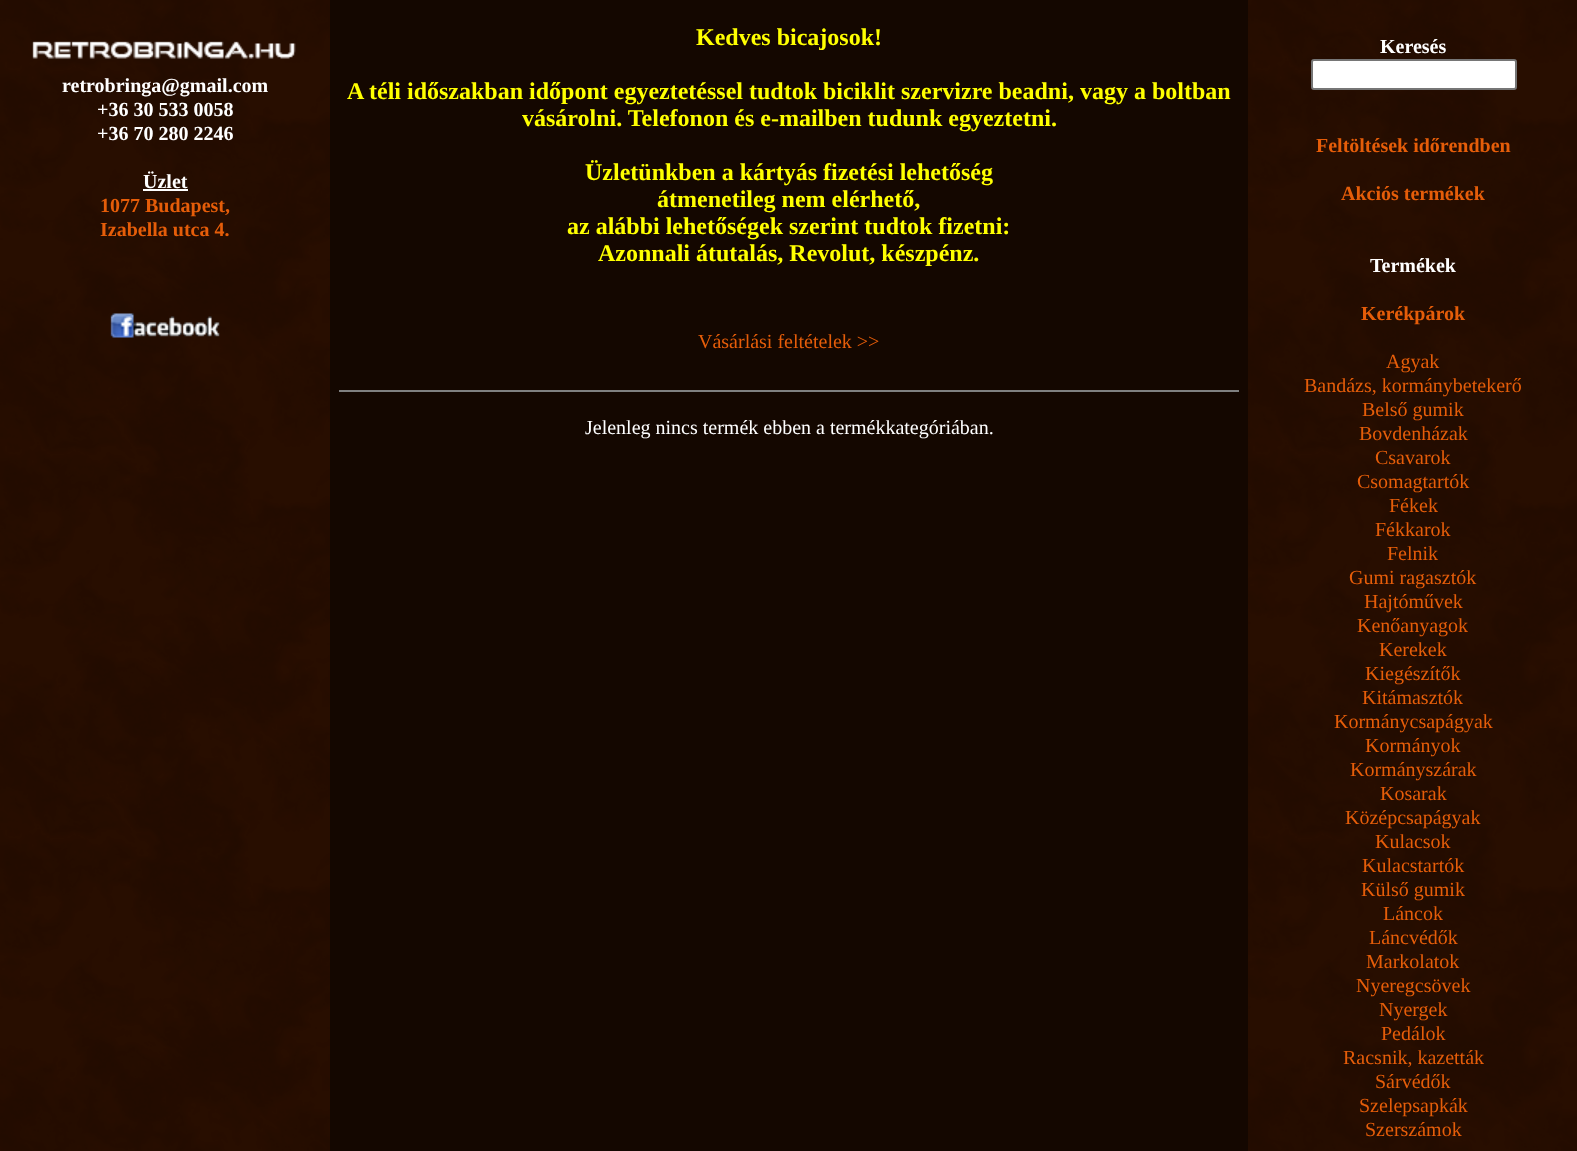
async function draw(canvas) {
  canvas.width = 1577;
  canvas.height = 1151;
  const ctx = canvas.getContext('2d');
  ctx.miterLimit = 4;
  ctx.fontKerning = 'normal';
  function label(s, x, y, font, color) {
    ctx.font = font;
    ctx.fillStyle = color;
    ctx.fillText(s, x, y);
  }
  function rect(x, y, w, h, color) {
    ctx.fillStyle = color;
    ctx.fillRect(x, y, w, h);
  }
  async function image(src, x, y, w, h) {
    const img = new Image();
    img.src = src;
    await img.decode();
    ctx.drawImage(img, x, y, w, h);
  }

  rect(0, 0, 1577, 1151, '#280e00');
  await image('assets/img1.png', 0, 0, 330, 1151);
  await image('assets/img2.png', 32, 41, 264, 18);
  label('retrobringa@gmail.com', 62, 92, 'bold 20px Liberation Serif', '#fff');
  label('+36 30 533 0058', 97, 116, 'bold 20px Liberation Serif', '#fff');
  label('+36 70 280 2246', 97, 140, 'bold 20px Liberation Serif', '#fff');
  label('Üzlet', 143, 188, 'bold 20px Liberation Serif', '#fff');
  rect(143, 189, 45, 2, '#fff');
  label('1077 Budapest,', 100, 212, 'bold 20px Liberation Serif', '#e55d09');
  label('Izabella utca 4.', 100, 236, 'bold 20px Liberation Serif', '#e55d09');
  await image('assets/img3.png', 110, 313, 110, 25);
  rect(330, 0, 918, 1151, '#140700');
  label('Kedves bicajosok!', 696, 45, 'bold 24px Liberation Serif', '#ff0');
  label('A téli időszakban időpont egyeztetéssel tudtok biciklit szervizre beadni, vagy a boltban', 347, 99, 'bold 24px Liberation Serif', '#ff0');
  label('vásárolni. Telefonon és e-mailben tudunk egyeztetni.', 522, 126, 'bold 24px Liberation Serif', '#ff0');
  label('Üzletünkben a kártyás fizetési lehetőség', 585, 180, 'bold 24px Liberation Serif', '#ff0');
  label('átmenetileg nem elérhető,', 657, 207, 'bold 24px Liberation Serif', '#ff0');
  label('az alábbi lehetőségek szerint tudtok fizetni:', 567, 234, 'bold 24px Liberation Serif', '#ff0');
  label('Azonnali átutalás, Revolut, készpénz.', 598, 261, 'bold 24px Liberation Serif', '#ff0');
  label('Vásárlási feltételek >>', 698, 348, '20px Liberation Serif', '#e55d09');
  rect(339, 390, 900, 2, '#808080');
  label('Jelenleg nincs termék ebben a termékkategóriában.', 585, 434, '20px Liberation Serif', '#fff');
  await image('assets/img4.png', 1248, 0, 329, 1151);
  label('Keresés', 1380, 53, 'bold 20px Liberation Serif', '#fff');
  ctx.beginPath();
  ctx.roundRect(1312, 60, 204, 29, 2);
  ctx.fill();
  ctx.strokeStyle = '#767676';
  ctx.lineWidth = 2;
  ctx.stroke();
  label('Feltöltések időrendben', 1316, 152, 'bold 20px Liberation Serif', '#e55d09');
  label('Akciós termékek', 1341, 200, 'bold 20px Liberation Serif', '#e55d09');
  label('Termékek', 1370, 272, 'bold 20px Liberation Serif', '#fff');
  label('Kerékpárok', 1361, 320, 'bold 20px Liberation Serif', '#e55d09');
  label('Agyak', 1386, 368, '20px Liberation Serif', '#e55d09');
  label('Bandázs, kormánybetekerő', 1304, 392, '20px Liberation Serif', '#e55d09');
  label('Belső gumik', 1362, 416, '20px Liberation Serif', '#e55d09');
  label('Bovdenházak', 1359, 440, '20px Liberation Serif', '#e55d09');
  label('Csavarok', 1375, 464, '20px Liberation Serif', '#e55d09');
  label('Csomagtartók', 1357, 488, '20px Liberation Serif', '#e55d09');
  label('Fékek', 1389, 512, '20px Liberation Serif', '#e55d09');
  label('Fékkarok', 1375, 536, '20px Liberation Serif', '#e55d09');
  label('Felnik', 1387, 560, '20px Liberation Serif', '#e55d09');
  label('Gumi ragasztók', 1349, 584, '20px Liberation Serif', '#e55d09');
  label('Hajtóművek', 1364, 608, '20px Liberation Serif', '#e55d09');
  label('Kenőanyagok', 1357, 632, '20px Liberation Serif', '#e55d09');
  label('Kerekek', 1379, 656, '20px Liberation Serif', '#e55d09');
  label('Kiegészítők', 1365, 680, '20px Liberation Serif', '#e55d09');
  label('Kitámasztók', 1362, 704, '20px Liberation Serif', '#e55d09');
  label('Kormánycsapágyak', 1334, 728, '20px Liberation Serif', '#e55d09');
  label('Kormányok', 1365, 752, '20px Liberation Serif', '#e55d09');
  label('Kormányszárak', 1350, 776, '20px Liberation Serif', '#e55d09');
  label('Kosarak', 1380, 800, '20px Liberation Serif', '#e55d09');
  label('Középcsapágyak', 1345, 824, '20px Liberation Serif', '#e55d09');
  label('Kulacsok', 1375, 848, '20px Liberation Serif', '#e55d09');
  label('Kulacstartók', 1362, 872, '20px Liberation Serif', '#e55d09');
  label('Külső gumik', 1361, 896, '20px Liberation Serif', '#e55d09');
  label('Láncok', 1383, 920, '20px Liberation Serif', '#e55d09');
  label('Láncvédők', 1369, 944, '20px Liberation Serif', '#e55d09');
  label('Markolatok', 1366, 968, '20px Liberation Serif', '#e55d09');
  label('Nyeregcsövek', 1356, 992, '20px Liberation Serif', '#e55d09');
  label('Nyergek', 1379, 1016, '20px Liberation Serif', '#e55d09');
  label('Pedálok', 1381, 1040, '20px Liberation Serif', '#e55d09');
  label('Racsnik, kazetták', 1343, 1064, '20px Liberation Serif', '#e55d09');
  label('Sárvédők', 1375, 1088, '20px Liberation Serif', '#e55d09');
  label('Szelepsapkák', 1359, 1112, '20px Liberation Serif', '#e55d09');
  label('Szerszámok', 1365, 1136, '20px Liberation Serif', '#e55d09');
}

draw(document.querySelector('canvas'));
